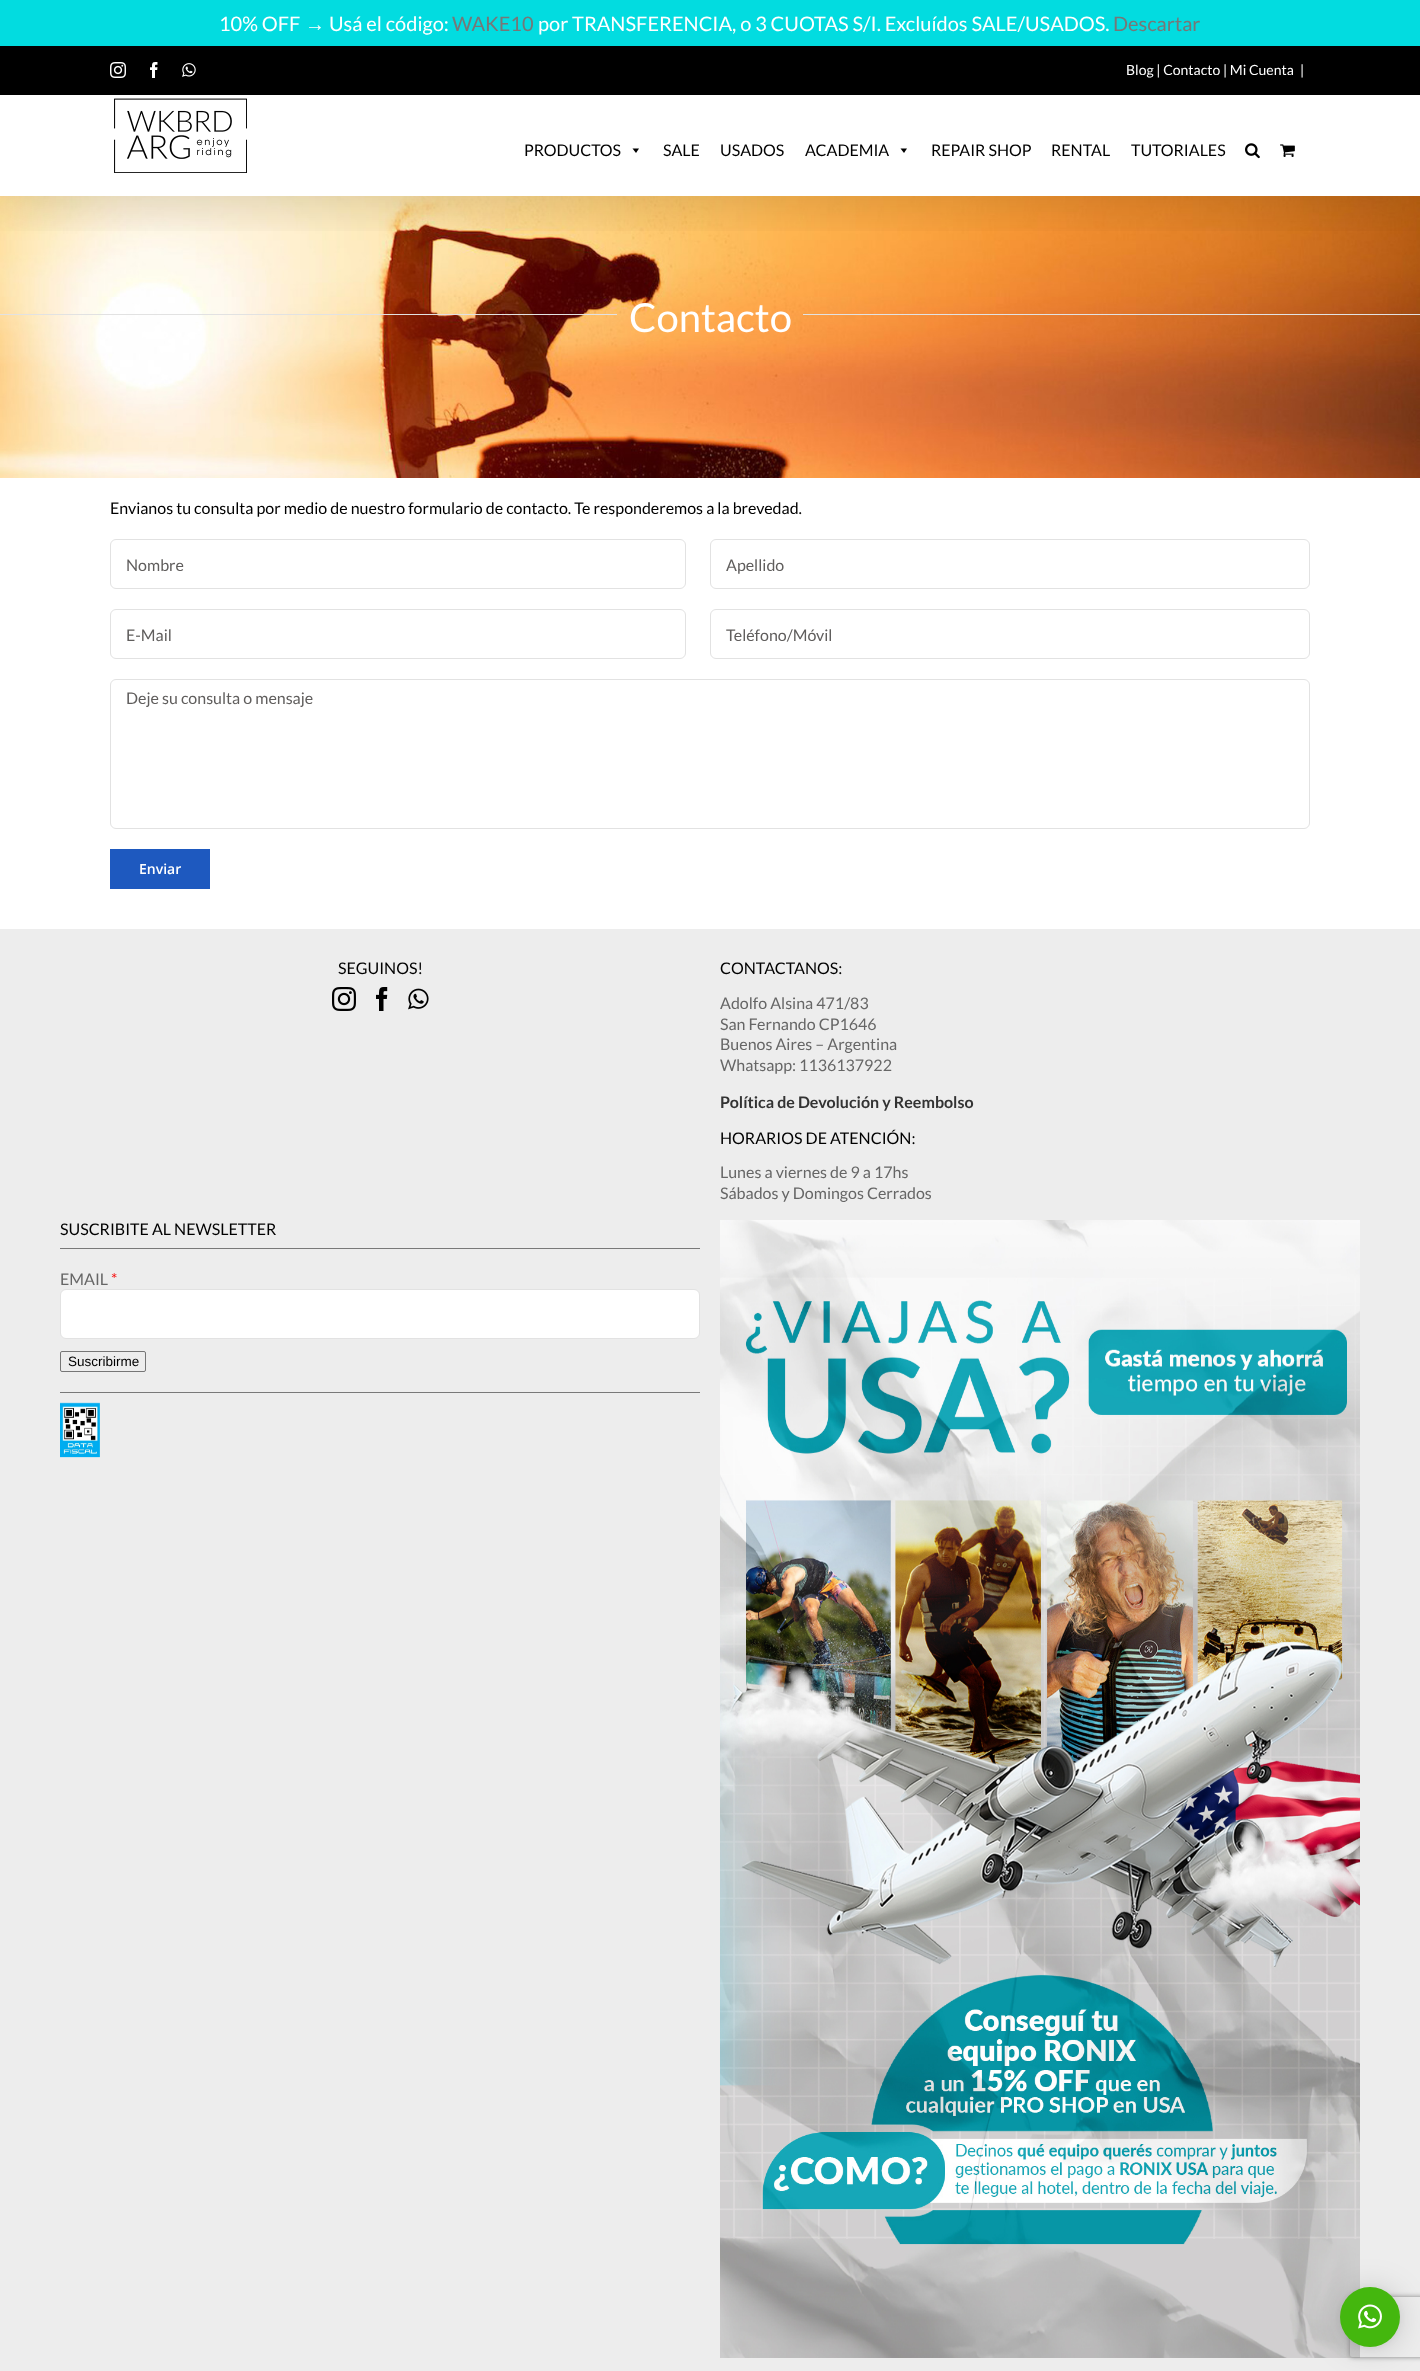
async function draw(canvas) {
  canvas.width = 1420;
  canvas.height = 2371;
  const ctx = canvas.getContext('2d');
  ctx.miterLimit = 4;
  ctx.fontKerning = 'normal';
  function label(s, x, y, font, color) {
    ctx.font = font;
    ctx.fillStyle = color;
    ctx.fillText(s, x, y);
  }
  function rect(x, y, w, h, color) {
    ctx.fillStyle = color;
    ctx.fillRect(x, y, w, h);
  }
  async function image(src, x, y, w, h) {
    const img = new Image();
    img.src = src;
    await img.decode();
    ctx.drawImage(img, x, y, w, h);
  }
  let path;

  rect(0, 0, 1420, 2371, '#fff');
  await image('assets/img7.png', 0, 196, 1420, 282);
  ctx.save();
  ctx.beginPath();
  ctx.rect(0, 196, 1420, 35);
  ctx.clip();
  ctx.fillStyle = '#00000024';
  ctx.filter = 'blur(25px)';
  ctx.beginPath();
  ctx.rect(2, 58, 1416, 146);
  ctx.fill();
  ctx.filter = 'none';
  ctx.restore();
  rect(0, 0, 1420, 46, '#02dce0');
  label('10% OFF', 219, 31, '20px Lato', '#fff');
  label('→', 305, 31, '20px Liberation Serif', '#fff');
  label('Usá el código:', 329, 31, '20px Lato', '#fff');
  label('WAKE10', 452, 31, '20px Lato', '#777');
  label('por TRANSFERENCIA, o 3 CUOTAS S/I. Excluídos SALE/USADOS.', 538, 31, '20px Lato', '#fff');
  label('Descartar', 1113, 31, '20px Lato', '#777');
  rect(0, 46, 1420, 49, '#000');
  await image('assets/img1.png', 110, 62, 16, 16);
  await image('assets/img2.png', 150, 62, 8, 16);
  await image('assets/img3.png', 182, 63, 14, 14);
  label('Blog | Contacto | Mi Cuenta', 1126, 75, '14px Lato', '#fff');
  label('|', 1300, 75, '14px Lato', '#fff');
  await image('assets/img4.png', 114, 98, 133, 75);
  label('PRODUCTOS', 524, 156, '16px Lato', '#000');
  path = new Path2D('M639 148.5L636 153L632.5 148.5Z');
  ctx.fill(path);
  label('SALE', 663, 156, '16px Lato', '#000');
  label('USADOS', 720, 156, '16px Lato', '#000');
  label('ACADEMIA', 805, 156, '16px Lato', '#000');
  path = new Path2D('M907 148.5L904 153L900.5 148.5Z');
  ctx.fill(path);
  label('REPAIR SHOP', 931, 156, '16px Lato', '#000');
  label('RENTAL', 1051, 156, '16px Lato', '#000');
  label('TUTORIALES', 1131, 156, '16px Lato', '#000');
  await image('assets/img5.png', 1245, 143, 15, 16);
  await image('assets/img6.png', 1280, 144, 15, 13);
  rect(0, 314, 617, 1, '#e2e2e2');
  label('Contacto', 629, 332, '40px Lato', '#fff');
  rect(803, 314, 617, 1, '#e2e2e2');
  label('Envianos tu consulta por medio de nuestro formulario de contacto. Te responderemos a la brevedad.', 110, 514, '16px Lato', '#000');
  ctx.beginPath();
  ctx.roundRect(110.5, 539.5, 575, 49, 5.5);
  ctx.strokeStyle = '#e2e2e2';
  ctx.stroke();
  label('Nombre', 126, 571, '16px Lato', '#605e5d');
  ctx.beginPath();
  ctx.roundRect(710.5, 539.5, 599, 49, 5.5);
  ctx.stroke();
  label('Apellido', 726, 571, '16px Lato', '#605e5d');
  ctx.beginPath();
  ctx.roundRect(110.5, 609.5, 575, 49, 5.5);
  ctx.stroke();
  label('E-Mail', 126, 641, '16px Lato', '#605e5d');
  ctx.beginPath();
  ctx.roundRect(710.5, 609.5, 599, 49, 5.5);
  ctx.stroke();
  label('Teléfono/Móvil', 726, 641, '16px Lato', '#605e5d');
  ctx.beginPath();
  ctx.roundRect(110.5, 679.5, 1199, 149, 5.5);
  ctx.stroke();
  label('Deje su consulta o mensaje', 126, 704, '16px Lato', '#605e5d');
  rect(110, 849, 100, 40, '#1e59bf');
  label('Enviar', 139, 874, '600 14px Open Sans', '#fff');
  rect(0, 929, 1420, 1442, '#ededed');
  label('SEGUINOS!', 338, 974, '16px Lato', '#000');
  await image('assets/img8.png', 332, 987, 24, 24);
  await image('assets/img9.png', 376, 987, 12, 24);
  await image('assets/img10.png', 408, 988, 21, 22);
  label('CONTACTANOS:', 720, 974, '16px Lato', '#000');
  label('Adolfo Alsina 471/83', 720, 1009, '16px Lato', '#666');
  label('San Fernando CP1646', 720, 1030, '16px Lato', '#666');
  label('Buenos Aires – Argentina', 720, 1050, '16px Lato', '#666');
  label('Whatsapp: 1136137922', 720, 1071, '16px Lato', '#666');
  label('Política de Devolución y Reembolso', 720, 1108, 'bold 16px Lato', '#333');
  label('HORARIOS DE ATENCIÓN:', 720, 1144, '16px Lato', '#000');
  label('Lunes a viernes de 9 a 17hs', 720, 1178, '16px Lato', '#666');
  label('Sábados y Domingos Cerrados', 720, 1199, '16px Lato', '#666');
  label('SUSCRIBITE AL NEWSLETTER', 60, 1235, '16px Lato', '#000');
  rect(60, 1248, 640, 1, '#797979');
  rect(60, 1392, 640, 1, '#797979');
  label('EMAIL', 60, 1285, '16px Lato', '#666');
  label('*', 111, 1285, '16px Lato', '#f71010');
  ctx.fillStyle = '#fff';
  ctx.beginPath();
  ctx.roundRect(60.5, 1289.5, 639, 49, 5.5);
  ctx.fill();
  ctx.stroke();
  ctx.beginPath();
  ctx.roundRect(60.5, 1351.5, 85, 20, 1.5);
  ctx.strokeStyle = '#767676';
  ctx.stroke();
  label('Suscribirme', 68, 1366, '13.5px Liberation Sans', '#000');
  await image('assets/img11.png', 60, 1402, 40, 56);
  await image('assets/img12.png', 720, 1220, 640, 1138);
  ctx.fillStyle = '#00000029';
  ctx.filter = 'blur(16px)';
  ctx.beginPath();
  ctx.roundRect(1340, 2289, 60, 60, 30);
  ctx.fill();
  ctx.filter = 'none';
  ctx.fillStyle = '#0000000f';
  ctx.filter = 'blur(3px)';
  ctx.beginPath();
  ctx.roundRect(1340, 2288, 60, 60, 30);
  ctx.fill();
  ctx.filter = 'none';
  ctx.save();
  path = new Path2D('M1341 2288H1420V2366H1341ZM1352 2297H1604C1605 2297 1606 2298 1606 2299V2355C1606 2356 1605 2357 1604 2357H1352C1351 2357 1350 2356 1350 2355V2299C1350 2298 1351 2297 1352 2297Z');
  ctx.clip(path, 'evenodd');
  ctx.fillStyle = '#808080';
  ctx.filter = 'blur(2.5px)';
  ctx.beginPath();
  ctx.roundRect(1350, 2297, 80, 60, 2);
  ctx.fill();
  ctx.filter = 'none';
  ctx.restore();
  ctx.fillStyle = '#44b70e';
  ctx.beginPath();
  ctx.arc(1370, 2317, 30, 0, 2 * Math.PI);
  ctx.fill();
  await image('assets/img13.png', 1358, 2304, 24, 25);
}

draw(document.querySelector('canvas'));
